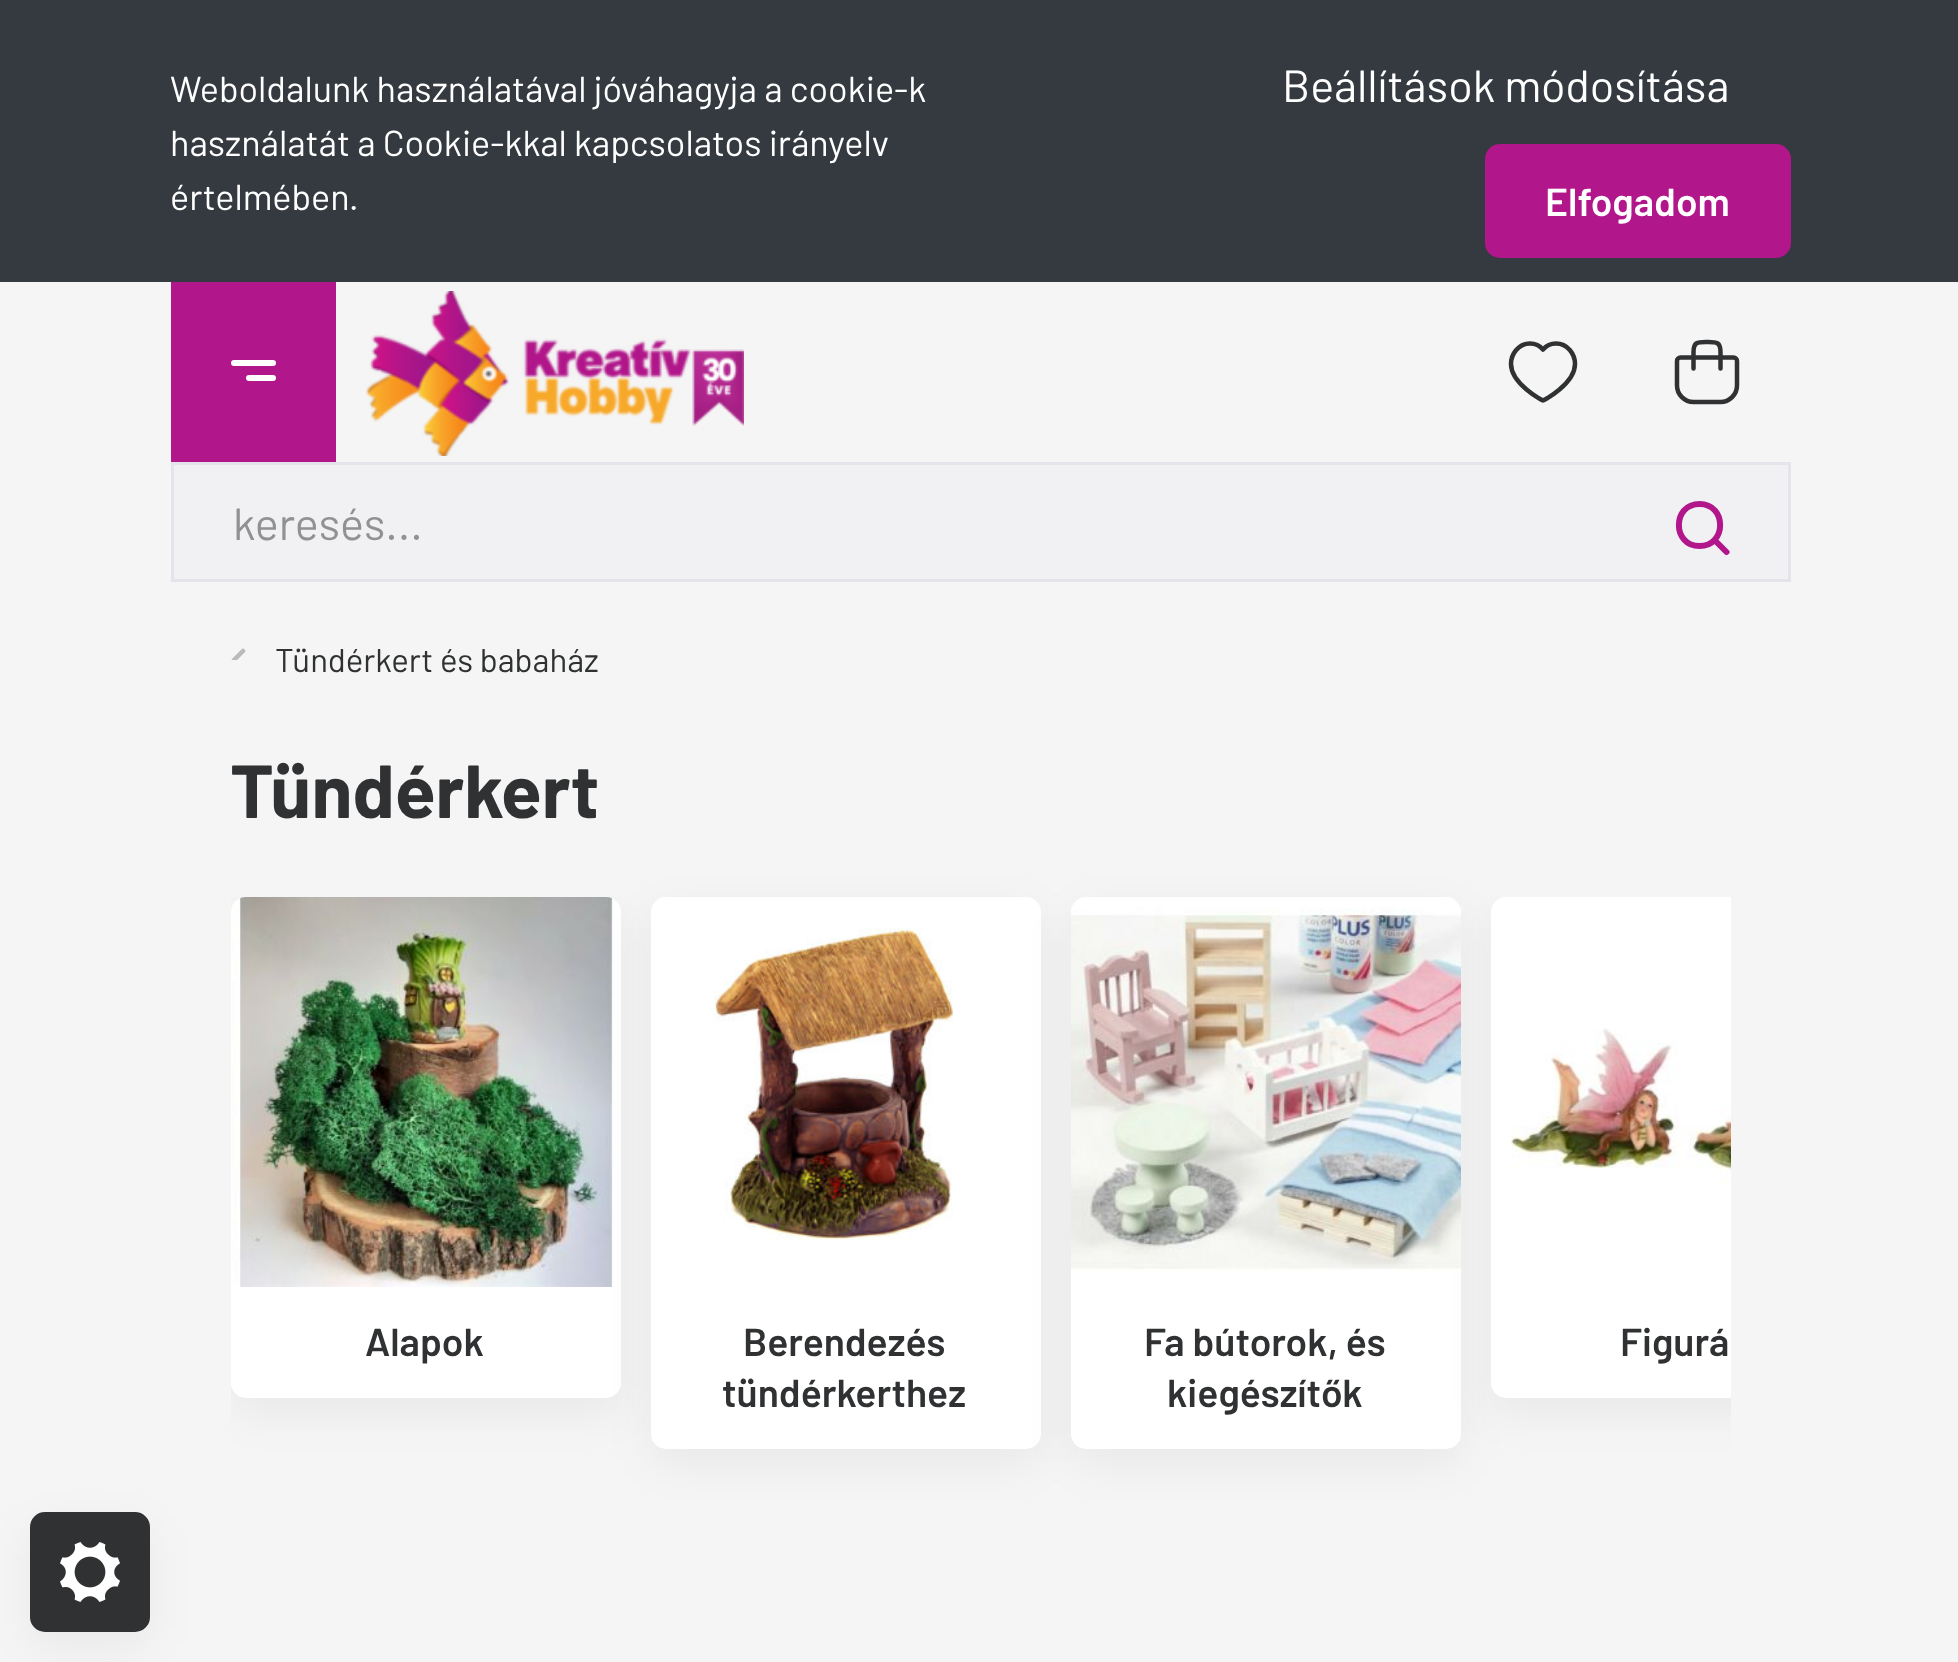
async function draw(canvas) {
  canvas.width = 1958;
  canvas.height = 1662;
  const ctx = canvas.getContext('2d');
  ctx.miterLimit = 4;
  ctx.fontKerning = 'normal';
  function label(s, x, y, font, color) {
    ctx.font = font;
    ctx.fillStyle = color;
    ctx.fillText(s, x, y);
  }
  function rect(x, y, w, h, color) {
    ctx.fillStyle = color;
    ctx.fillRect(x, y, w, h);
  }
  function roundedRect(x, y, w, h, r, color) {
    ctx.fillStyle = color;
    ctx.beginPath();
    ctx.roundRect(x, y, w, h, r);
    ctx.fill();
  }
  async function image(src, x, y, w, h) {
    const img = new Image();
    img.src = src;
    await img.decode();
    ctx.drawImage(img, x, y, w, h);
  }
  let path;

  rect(0, 0, 1958, 1662, '#f5f5f5');
  rect(0, 0, 1958, 282, '#343a40');
  label('Weboldalunk használatával jóváhagyja a cookie-k', 170, 102, '36px Barlow', '#fff');
  label('használatát a Cookie-kkal kapcsolatos irányelv', 170, 156, '36px Barlow', '#fff');
  label('értelmében.', 170, 210, '36px Barlow', '#fff');
  label('Beállítások módosítása', 1282, 102, '45px Barlow', '#fff');
  roundedRect(1485, 144, 306, 114, 15, '#b1168a');
  label('Elfogadom', 1545, 216, '600 39px Barlow', '#fff');
  rect(171, 282, 165, 180, '#b1168a');
  roundedRect(231, 360, 45, 6, 3, '#fff');
  roundedRect(246, 375, 30, 6, 3, '#fff');
  await image('assets/img1.png', 366, 291, 378, 165);
  path = new Path2D('M1556 343.5C1567.5 343.5 1575 354 1575 364C1575 384 1543.5 400.5 1543 400.5C1542.5 400.5 1511 384 1511 364C1511 354 1518.5 343.5 1530 343.5C1536 343.5 1540.5 346.5 1543 349.5C1545.5 346.5 1549.5 343.5 1556 343.5Z');
  ctx.strokeStyle = '#2f3132';
  ctx.lineWidth = 4.5;
  ctx.lineCap = 'round';
  ctx.lineJoin = 'round';
  ctx.stroke(path);
  path = new Path2D('M1720.5 368.5V352C1720.5 341.5 1716 342 1707 342C1698 342 1693.5 341.5 1693.5 352V368.5M1720.5 402H1693.5C1684.5 402 1677 394.5 1677 385.5V361C1677 359 1678.5 357.5 1680.5 357.5H1733.5C1735.5 357.5 1737 359 1737 361V385.5C1737 394.5 1729.5 402 1720.5 402Z');
  ctx.stroke(path);
  ctx.fillStyle = '#f1f1f4';
  ctx.beginPath();
  ctx.rect(172.5, 463.5, 1617, 117);
  ctx.fill();
  ctx.strokeStyle = '#e4e4ea';
  ctx.lineWidth = 3;
  ctx.lineJoin = 'miter';
  ctx.stroke();
  label('keresés...', 233, 540, '45px Barlow', '#909193');
  path = new Path2D('M1726.5 552L1714.5 540M1699.5 546C1672 546 1672 504 1699.5 504C1727 504 1727 546 1699.5 546Z');
  ctx.strokeStyle = '#b1168a';
  ctx.lineWidth = 6;
  ctx.lineJoin = 'round';
  ctx.stroke(path);
  await image('assets/img2.png', 231, 648, 15, 12);
  label('Tündérkert és babaház', 275, 672, '33px Barlow', '#2f3132');
  label('Tündérkert', 230, 818, 'bold 75px Barlow', '#2f3132');
  ctx.save();
  ctx.beginPath();
  ctx.rect(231, 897, 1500, 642);
  ctx.clip();
  ctx.fillStyle = '#0000000d';
  ctx.filter = 'blur(22.5px)';
  ctx.beginPath();
  ctx.roundRect(231, 912, 390, 501, 15);
  ctx.fill();
  ctx.filter = 'none';
  ctx.restore();
  roundedRect(231, 897, 390, 501, 15, '#fff');
  ctx.fillStyle = '#0000000d';
  ctx.filter = 'blur(22.5px)';
  ctx.beginPath();
  ctx.roundRect(651, 912, 390, 552, 15);
  ctx.fill();
  ctx.filter = 'none';
  await image('assets/img3.png', 232, 897, 381, 390);
  label('Alapok', 365, 1356, '600 39px Barlow', '#2f3132');
  roundedRect(651, 897, 390, 552, 15, '#fff');
  await image('assets/img4.png', 713, 928, 240, 312);
  label('Berendezés', 743, 1356, '600 39px Barlow', '#2f3132');
  label('tündérkerthez', 722, 1407, '600 39px Barlow', '#2f3132');
  ctx.fillStyle = '#0000000d';
  ctx.filter = 'blur(22.5px)';
  ctx.beginPath();
  ctx.roundRect(1071, 912, 390, 552, 15);
  ctx.fill();
  ctx.filter = 'none';
  roundedRect(1071, 897, 390, 552, 15, '#fff');
  ctx.save();
  ctx.beginPath();
  ctx.rect(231, 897, 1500, 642);
  ctx.clip();
  ctx.fillStyle = '#0000000d';
  ctx.filter = 'blur(22.5px)';
  ctx.beginPath();
  ctx.roundRect(1491, 912, 390, 501, 15);
  ctx.fill();
  ctx.filter = 'none';
  ctx.restore();
  await image('assets/img5.png', 1071, 907, 390, 364);
  label('Fa bútorok, és', 1144, 1356, '600 39px Barlow', '#2f3132');
  label('kiegészítők', 1167, 1407, '600 39px Barlow', '#2f3132');
  ctx.fillStyle = '#fff';
  ctx.beginPath();
  ctx.roundRect(1491, 897, 240, 501, [15, 0, 0, 15]);
  ctx.fill();
  await image('assets/img6.png', 1511, 1028, 220, 156);
  label('Figurá', 1620, 1356, '600 39px Barlow', '#2f3132');
  ctx.fillStyle = '#0000000d';
  ctx.filter = 'blur(22.5px)';
  ctx.beginPath();
  ctx.roundRect(30, 1527, 120, 120, 15);
  ctx.fill();
  ctx.filter = 'none';
  roundedRect(30, 1512, 120, 120, 15, '#2f3132');
  await image('assets/img7.png', 60, 1542, 60, 60);
}

draw(document.querySelector('canvas'));
